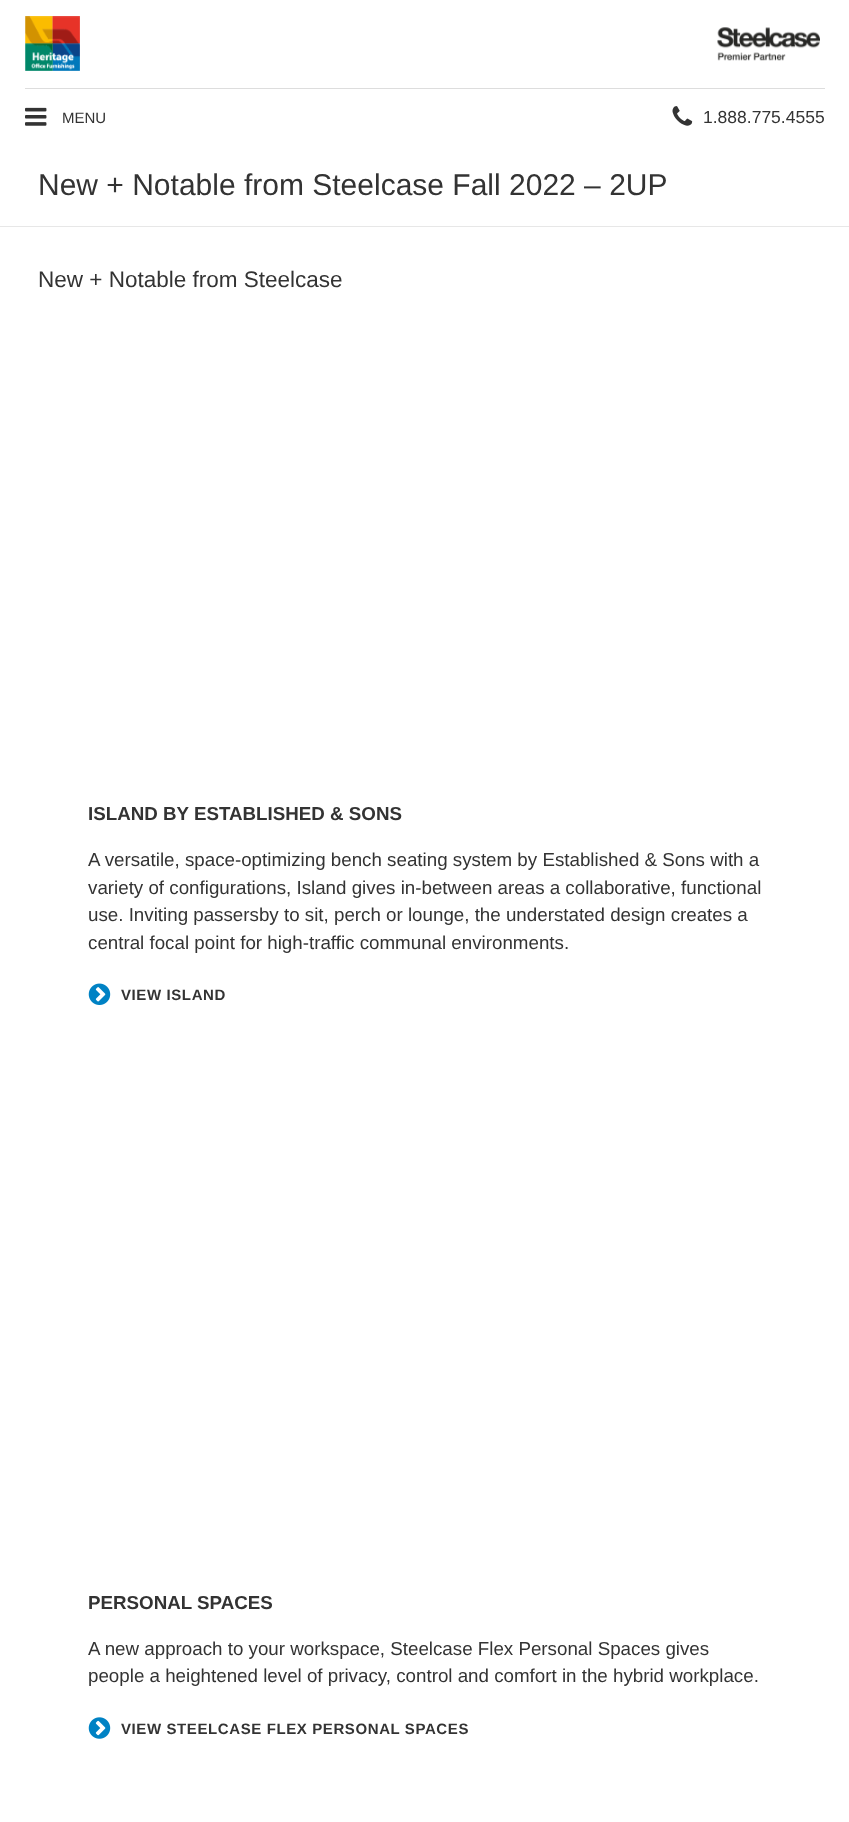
async function draw(canvas) {
  canvas.width = 849;
  canvas.height = 1822;
  const ctx = canvas.getContext('2d');
  ctx.miterLimit = 4;
  ctx.fontKerning = 'normal';
  function label(s, x, y, font, color) {
    ctx.font = font;
    ctx.fillStyle = color;
    ctx.fillText(s, x, y);
  }
  function rect(x, y, w, h, color) {
    ctx.fillStyle = color;
    ctx.fillRect(x, y, w, h);
  }
  async function image(src, x, y, w, h) {
    const img = new Image();
    img.src = src;
    await img.decode();
    ctx.drawImage(img, x, y, w, h);
  }

  rect(0, 0, 849, 1822, '#fff');
  await image('assets/img1.png', 25, 16, 55, 55);
  await image('assets/img2.png', 717, 27, 103, 34);
  rect(25, 88, 800, 1, '#ddd');
  await image('assets/img3.png', 25, 107, 22, 19);
  label('MENU', 62, 123, '15px Liberation Sans', '#333');
  await image('assets/img4.png', 672, 106, 21, 20);
  label('1.888.775.4555', 703, 123, '17.5px Liberation Sans', '#333');
  rect(0, 226, 849, 1, '#e7e7e7');
  label('New + Notable from Steelcase Fall 2022 – 2UP', 38, 195, '30px Liberation Sans', '#333');
  label('New + Notable from Steelcase', 38, 287, '22.5px Liberation Sans', '#333');
  label('ISLAND BY ESTABLISHED & SONS', 88, 820, 'bold 18.75px Liberation Sans', '#333');
  label('A versatile, space-optimizing bench seating system by Established & Sons with a', 88, 866, '18.75px Liberation Sans', '#333');
  label('variety of configurations, Island gives in-between areas a collaborative, functional', 88, 894, '18.75px Liberation Sans', '#333');
  label('use. Inviting passersby to sit, perch or lounge, the understated design creates a', 88, 921, '18.75px Liberation Sans', '#333');
  label('central focal point for high-traffic communal environments.', 88, 949, '18.75px Liberation Sans', '#333');
  await image('assets/img5.png', 88, 983, 23, 22);
  ctx.letterSpacing = '0.6px';
  label('VIEW ISLAND', 121, 1000, 'bold 15px Liberation Sans', '#333');
  ctx.letterSpacing = '0px';
  label('PERSONAL SPACES', 88, 1609, 'bold 18.75px Liberation Sans', '#333');
  label('A new approach to your workspace, Steelcase Flex Personal Spaces gives', 88, 1655, '18.75px Liberation Sans', '#333');
  label('people a heightened level of privacy, control and comfort in the hybrid workplace.', 88, 1682, '18.75px Liberation Sans', '#333');
  await image('assets/img6.png', 88, 1717, 23, 22);
  ctx.letterSpacing = '0.6px';
  label('VIEW STEELCASE FLEX PERSONAL SPACES', 121, 1734, 'bold 15px Liberation Sans', '#333');
}

draw(document.querySelector('canvas'));
